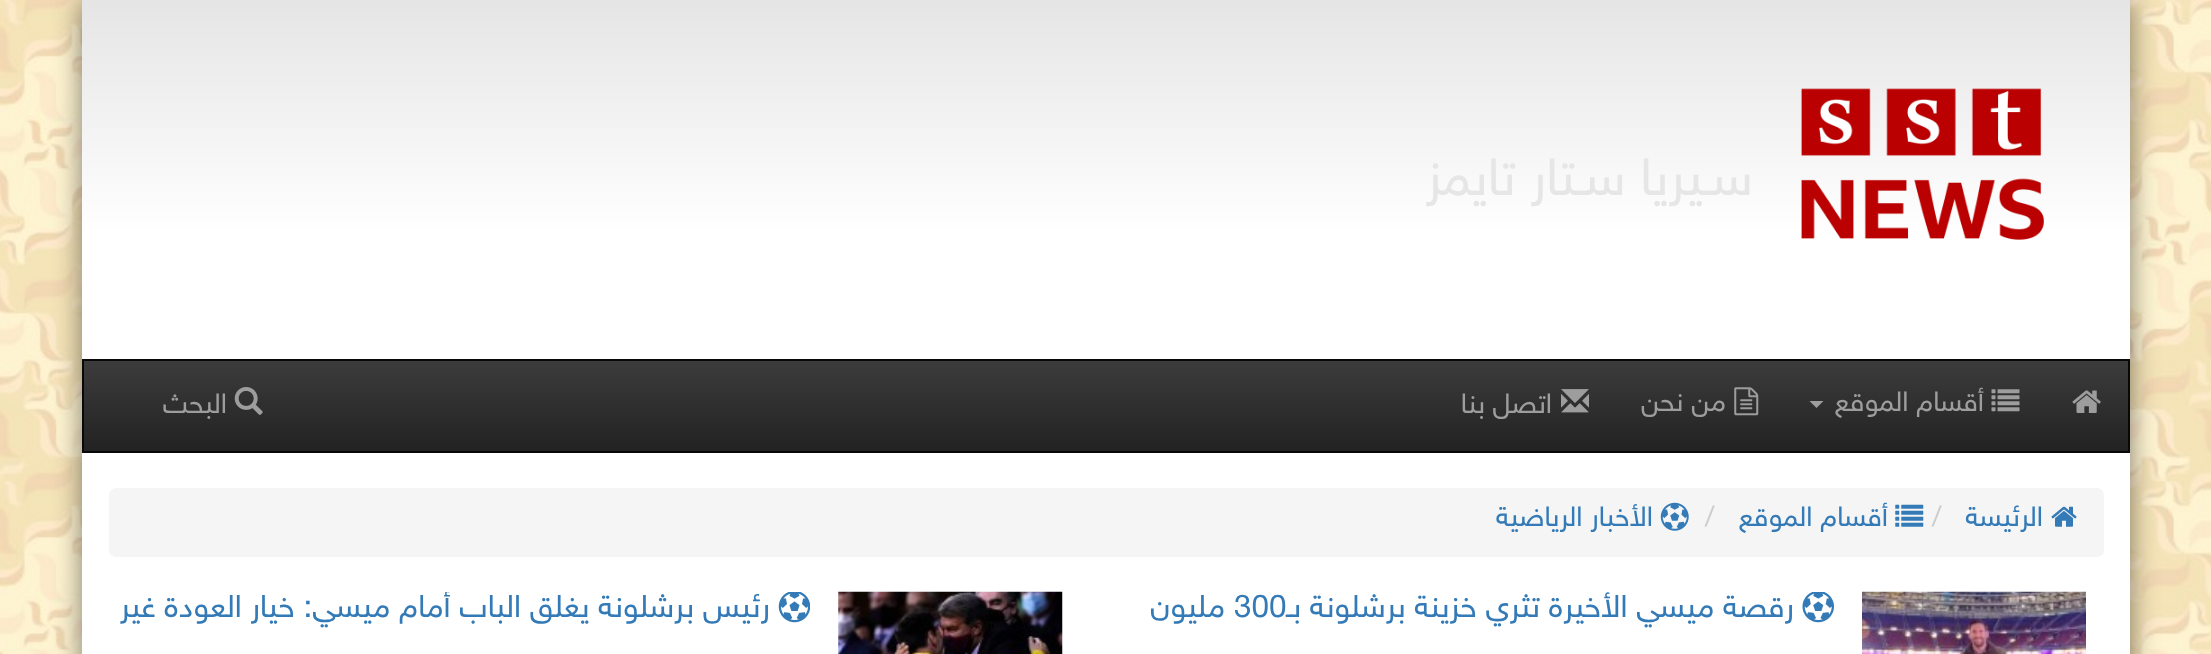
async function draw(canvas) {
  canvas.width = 2211;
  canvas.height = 654;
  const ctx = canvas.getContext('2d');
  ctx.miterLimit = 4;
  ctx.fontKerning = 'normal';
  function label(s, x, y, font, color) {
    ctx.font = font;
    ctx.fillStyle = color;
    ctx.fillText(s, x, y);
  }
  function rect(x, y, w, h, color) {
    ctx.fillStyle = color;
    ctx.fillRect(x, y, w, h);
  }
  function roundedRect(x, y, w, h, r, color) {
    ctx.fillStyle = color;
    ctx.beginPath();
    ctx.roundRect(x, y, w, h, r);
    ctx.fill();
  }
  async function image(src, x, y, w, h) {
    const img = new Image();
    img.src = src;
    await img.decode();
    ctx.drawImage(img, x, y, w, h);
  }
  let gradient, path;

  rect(0, 0, 2211, 654, '#fff');
  await image('assets/img1.png', 0, 0, 2211, 654);
  ctx.fillStyle = '#00000080';
  ctx.filter = 'blur(14px)';
  ctx.beginPath();
  ctx.rect(82, 0, 2048, 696);
  ctx.fill();
  ctx.filter = 'none';
  rect(82, 453, 2048, 201, '#fff');
  gradient = ctx.createLinearGradient(1106, 0, 1106, 359);
  gradient.addColorStop(0, '#e5e5e5');
  gradient.addColorStop(0.66, '#fff');
  ctx.fillStyle = gradient;
  ctx.fillRect(82, 0, 2048, 359);
  await image('assets/img2.png', 1801, 88, 243, 152);
  ctx.direction = 'rtl';
  label('سـيريا سـتار تايمز', 1753, 195, '52.5px "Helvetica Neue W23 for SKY"', '#e6e6e6');
  gradient = ctx.createLinearGradient(1106, 360, 1106, 452);
  gradient.addColorStop(0, '#3c3c3c');
  gradient.addColorStop(1, '#222');
  ctx.fillStyle = gradient;
  ctx.fillRect(84, 361, 2044, 90);
  ctx.strokeStyle = '#080808';
  ctx.lineWidth = 2;
  ctx.strokeRect(83, 360, 2046, 92);
  await image('assets/img3.png', 2072, 390, 29, 23);
  await image('assets/img4.png', 1991, 389, 29, 23);
  label('أقسام الموقع', 1984, 411, '28px "Helvetica Neue W23 for SKY"', '#9d9d9d');
  path = new Path2D('M1809.5 401H1823.5L1816.5 408Z');
  ctx.fill(path);
  await image('assets/img5.png', 1734, 387, 25, 29);
  label('من نحن', 1726, 411, '28px "Helvetica Neue W23 for SKY"', '#9d9d9d');
  await image('assets/img6.png', 1561, 389, 28, 24);
  label('اتصل', 1552, 413, '28px "Helvetica Neue W23 for SKY"', '#9d9d9d');
  label('بنا', 1485, 413, '28px "Helvetica Neue W23 for SKY"', '#9d9d9d');
  await image('assets/img7.png', 234, 387, 29, 28);
  label('البحث', 227, 413, '28px "Helvetica Neue W23 for SKY"', '#9d9d9d');
  roundedRect(109, 488, 1995, 69, 7, '#f5f5f5');
  await image('assets/img8.png', 2051, 506, 26, 21);
  label('الرئيسة', 2043, 526, '28px "Helvetica Neue W23 for SKY"', '#337ab7');
  ctx.direction = 'ltr';
  label('/', 1932, 526, '28px "Helvetica Neue W23 for SKY"', '#ccc');
  await image('assets/img9.png', 1895, 504, 29, 23);
  ctx.direction = 'rtl';
  label('أقسام الموقع', 1888, 526, '28px "Helvetica Neue W23 for SKY"', '#337ab7');
  ctx.direction = 'ltr';
  label('/', 1705, 526, '28px "Helvetica Neue W23 for SKY"', '#ccc');
  await image('assets/img10.png', 1660, 502, 29, 29);
  ctx.direction = 'rtl';
  label('الأخبار الرياضية', 1653, 526, '28px "Helvetica Neue W23 for SKY"', '#337ab7');
  await image('assets/img11.png', 1862, 591, 224, 63);
  await image('assets/img12.png', 1802, 592, 32, 31);
  ctx.direction = 'ltr';
  label('300', 1234, 617, '31.5px "Helvetica Neue W23 for SKY"', '#337ab7');
  ctx.direction = 'rtl';
  label('رقصة ميسي الأخيرة تثري خزينة برشلونة بـ', 1794, 617, '31.5px "Helvetica Neue W23 for SKY"', '#337ab7');
  label('مليون', 1225, 617, '31.5px "Helvetica Neue W23 for SKY"', '#337ab7');
  await image('assets/img13.png', 838, 591, 225, 63);
  await image('assets/img14.png', 778, 592, 32, 31);
  ctx.save();
  ctx.beginPath();
  ctx.rect(109, 592, 701, 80);
  ctx.clip();
  label('رئيس برشلونة يغلق الباب أمام ميسي: خيار العودة غير', 770, 617, '31.5px "Helvetica Neue W23 for SKY"', '#337ab7');
  ctx.restore();
}

draw(document.querySelector('canvas'));
